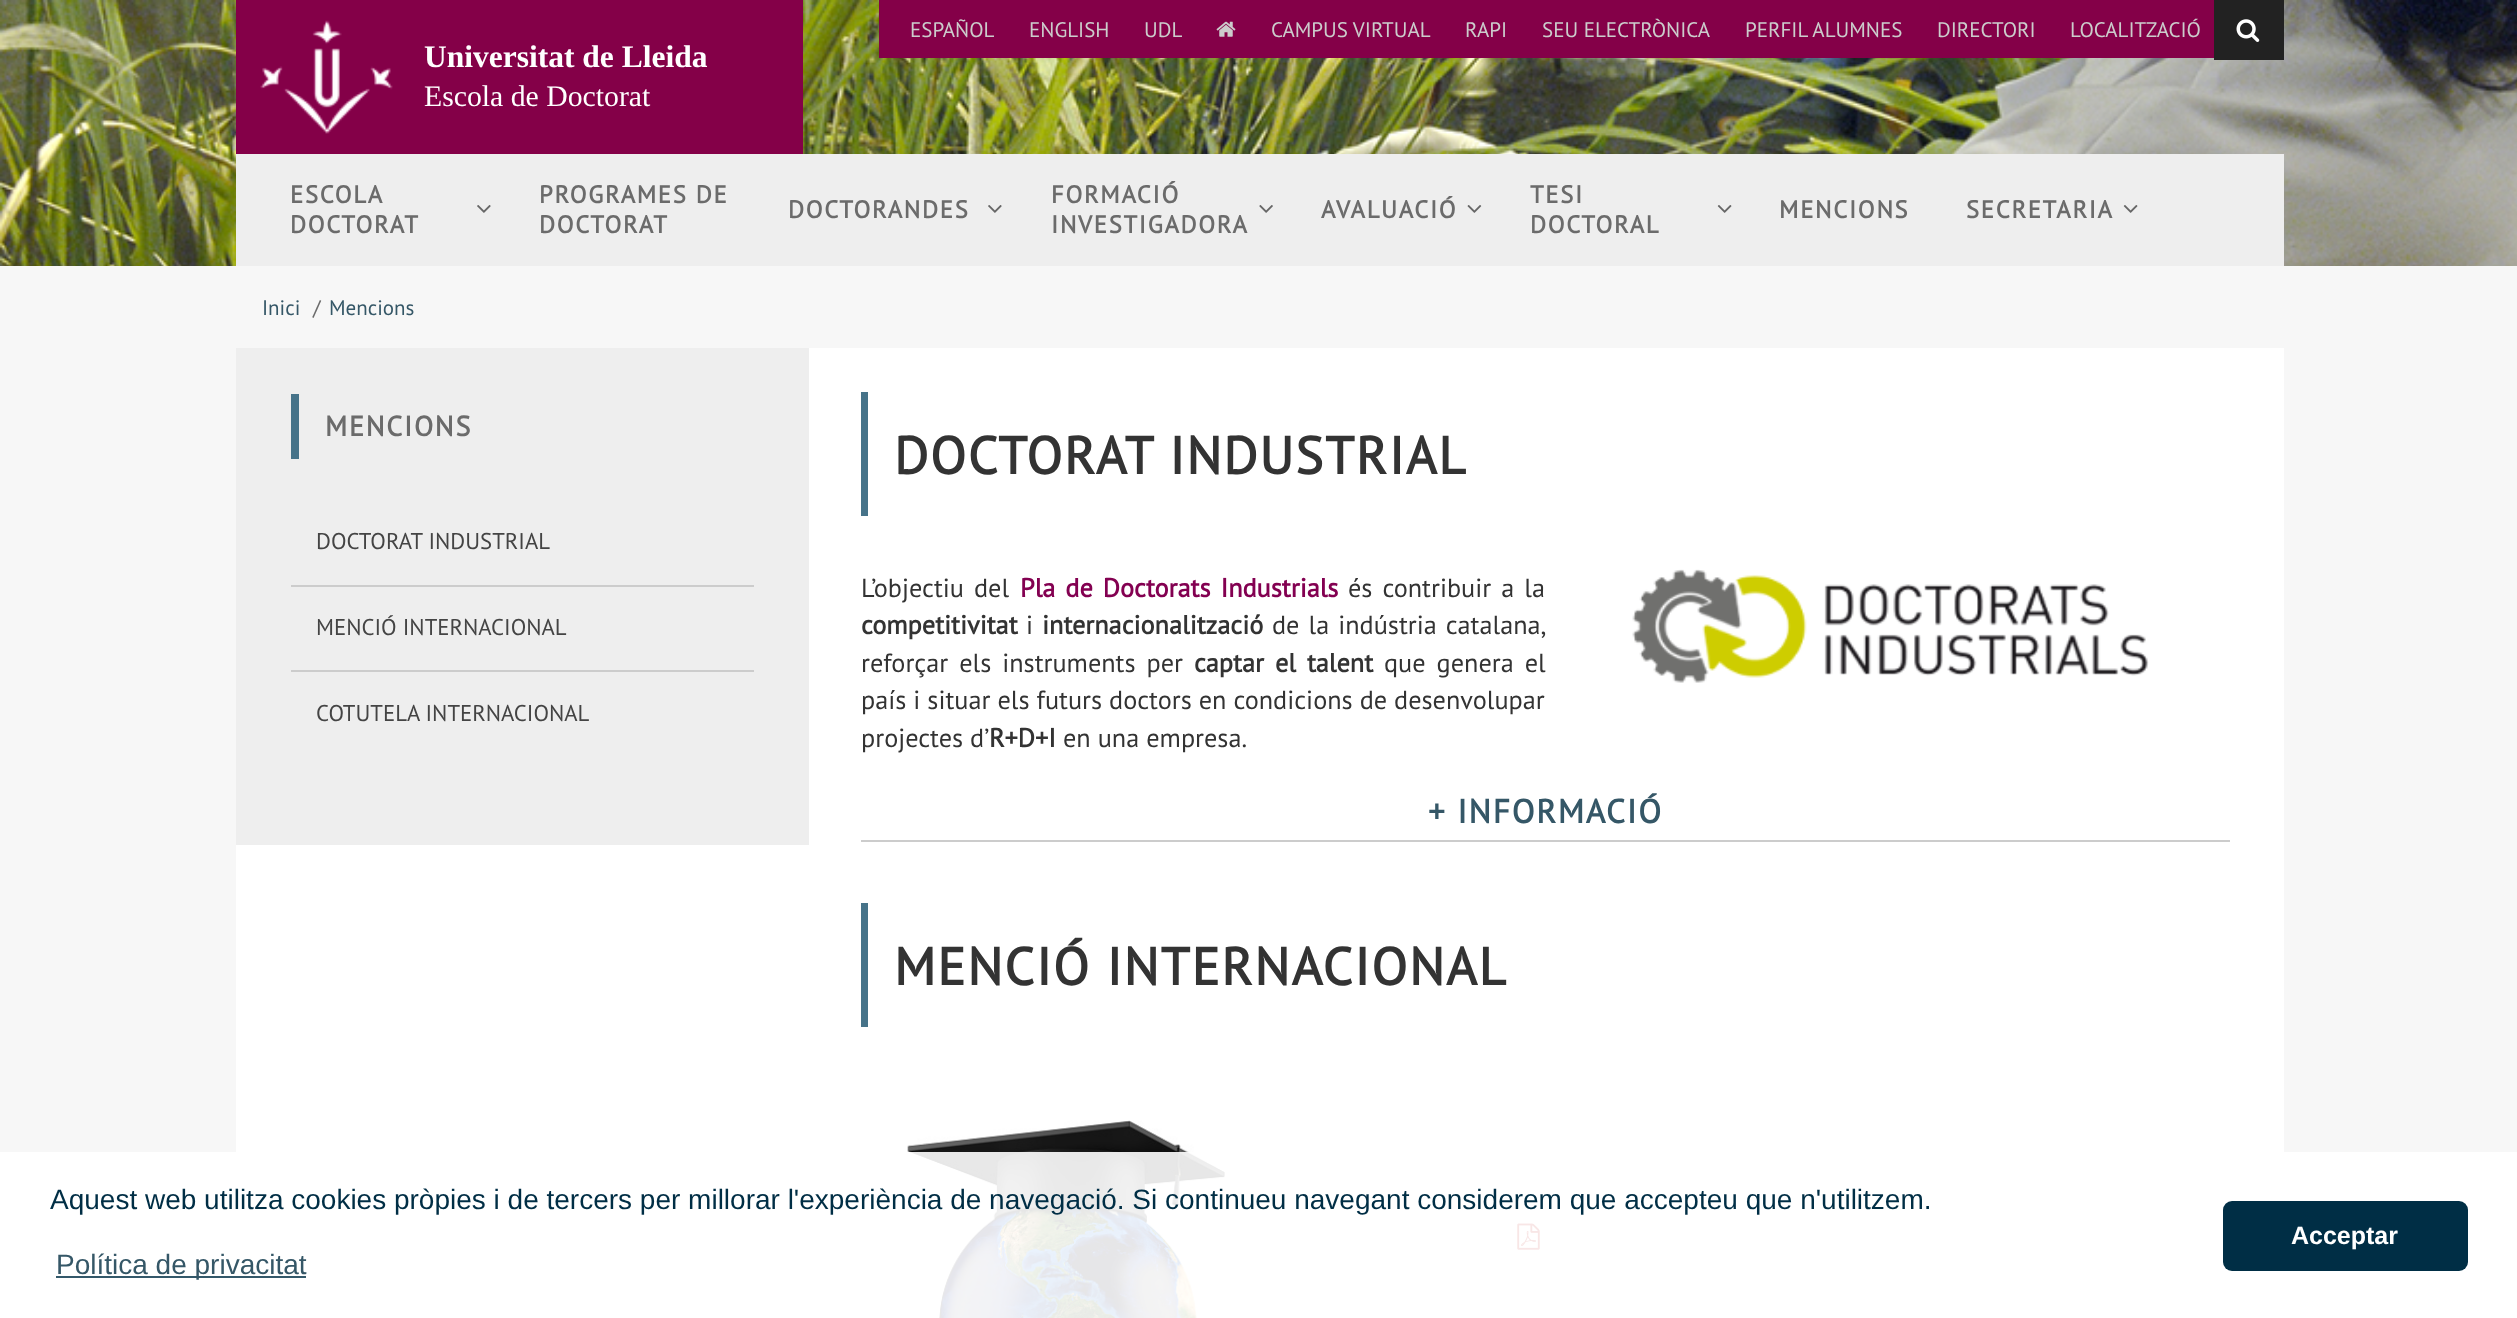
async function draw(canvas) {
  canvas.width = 2517;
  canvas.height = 1318;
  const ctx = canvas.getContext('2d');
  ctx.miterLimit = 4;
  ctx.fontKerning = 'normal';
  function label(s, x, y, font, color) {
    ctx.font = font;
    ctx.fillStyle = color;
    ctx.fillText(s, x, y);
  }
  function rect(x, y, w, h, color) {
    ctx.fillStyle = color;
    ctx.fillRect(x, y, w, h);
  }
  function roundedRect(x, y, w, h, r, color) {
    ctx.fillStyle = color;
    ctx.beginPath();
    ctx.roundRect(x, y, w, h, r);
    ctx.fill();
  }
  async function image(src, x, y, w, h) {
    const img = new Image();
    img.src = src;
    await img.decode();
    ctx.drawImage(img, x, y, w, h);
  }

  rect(0, 0, 2517, 1318, '#f7f7f7');
  await image('assets/img1.png', 0, 0, 2517, 266);
  rect(879, 0, 1335, 58, '#840048');
  label('ESPAÑOL', 910, 37, '21px PT Sans', '#ccc');
  label('ENGLISH', 1029, 37, '21px PT Sans', '#ccc');
  label('UDL', 1144, 37, '21px PT Sans', '#ccc');
  await image('assets/img2.png', 1216, 21, 20, 16);
  label('CAMPUS VIRTUAL', 1271, 37, '21px PT Sans', '#ccc');
  label('RAPI', 1465, 37, '21px PT Sans', '#ccc');
  label('SEU ELECTRÒNICA', 1542, 37, '21px PT Sans', '#ccc');
  label('PERFIL ALUMNES', 1745, 37, '21px PT Sans', '#ccc');
  label('DIRECTORI', 1937, 37, '21px PT Sans', '#ccc');
  label('LOCALITZACIÓ', 2070, 37, '21px PT Sans', '#ccc');
  rect(2214, 0, 70, 60, '#222');
  await image('assets/img3.png', 2236, 19, 24, 23);
  rect(236, 0, 567, 154, '#840048');
  await image('assets/img4.png', 260, 20, 133, 114);
  label('Universitat de Lleida', 424, 67, 'bold 31.5px Liberation Serif', '#fff');
  label('Escola de Doctorat', 424, 106, '29.75px Liberation Serif', '#fff');
  rect(236, 154, 2048, 112, '#eee');
  ctx.letterSpacing = '1.75px';
  label('ESCOLA', 290, 203, 'bold 24.5px PT Sans', '#6b6b6b');
  await image('assets/img5.png', 477, 205, 14, 8);
  label('DOCTORAT', 290, 233, 'bold 24.5px PT Sans', '#6b6b6b');
  label('PROGRAMES DE', 539, 203, 'bold 24.5px PT Sans', '#6b6b6b');
  label('DOCTORAT', 539, 233, 'bold 24.5px PT Sans', '#6b6b6b');
  label('DOCTORANDES', 788, 218, 'bold 24.5px PT Sans', '#6b6b6b');
  await image('assets/img5.png', 988, 205, 14, 8);
  label('FORMACIÓ', 1051, 203, 'bold 24.5px PT Sans', '#6b6b6b');
  await image('assets/img6.png', 1259, 205, 14, 8);
  label('INVESTIGADORA', 1051, 233, 'bold 24.5px PT Sans', '#6b6b6b');
  label('AVALUACIÓ', 1321, 218, 'bold 24.5px PT Sans', '#6b6b6b');
  await image('assets/img7.png', 1467, 205, 15, 8);
  label('TESI', 1530, 203, 'bold 24.5px PT Sans', '#6b6b6b');
  await image('assets/img8.png', 1717, 205, 15, 8);
  label('DOCTORAL', 1530, 233, 'bold 24.5px PT Sans', '#6b6b6b');
  label('MENCIONS', 1779, 218, 'bold 24.5px PT Sans', '#6b6b6b');
  label('SECRETARIA', 1966, 218, 'bold 24.5px PT Sans', '#6b6b6b');
  await image('assets/img8.png', 2123, 205, 15, 8);
  ctx.letterSpacing = '0px';
  label('Inici', 262, 315, '21px PT Sans', '#355767');
  label('/', 313, 315, '21px PT Sans', '#6b6b6b');
  label('Mencions', 329, 315, '21px PT Sans', '#355767');
  rect(236, 348, 2048, 970, '#fff');
  rect(236, 348, 573, 497, '#eee');
  rect(291, 394, 8, 65, '#467389');
  ctx.letterSpacing = '1.75px';
  label('MENCIONS', 325, 436, 'bold 28px PT Sans', '#6b6b6b');
  ctx.letterSpacing = '0px';
  label('DOCTORAT INDUSTRIAL', 316, 549, '22.75px PT Sans', '#444');
  rect(291, 585, 463, 2, '#ccc');
  label('MENCIÓ INTERNACIONAL', 316, 635, '22.75px PT Sans', '#444');
  rect(291, 670, 463, 2, '#ccc');
  label('COTUTELA INTERNACIONAL', 316, 721, '22.75px PT Sans', '#444');
  rect(861, 392, 7, 124, '#467389');
  ctx.letterSpacing = '1.75px';
  label('DOCTORAT INDUSTRIAL', 894, 474, 'bold 52.5px PT Sans', '#333');
  ctx.letterSpacing = '0px';
  ctx.wordSpacing = '3px';
  label('L’objectiu del', 861, 597, '26.25px PT Sans', '#333');
  label('Pla de Doctorats Industrials', 1020, 597, 'bold 26.25px PT Sans', '#830051');
  label('és contribuir a la', 1348, 597, '26.25px PT Sans', '#333');
  ctx.wordSpacing = '0px';
  label('competitivitat', 861, 634, 'bold 26.25px PT Sans', '#333');
  label('i', 1026, 634, '26.25px PT Sans', '#333');
  label('internacionalització', 1042, 634, 'bold 26.25px PT Sans', '#333');
  ctx.wordSpacing = '2px';
  label('de la indústria catalana,', 1272, 634, '26.25px PT Sans', '#333');
  ctx.wordSpacing = '4px';
  label('reforçar els instruments per', 861, 672, '26.25px PT Sans', '#333');
  label('captar el talent', 1194, 672, 'bold 26.25px PT Sans', '#333');
  label('que genera el', 1384, 672, '26.25px PT Sans', '#333');
  ctx.wordSpacing = '0px';
  label('país i situar els futurs doctors en condicions de desenvolupar', 861, 709, '26.25px PT Sans', '#333');
  label('projectes d’', 861, 747, '26.25px PT Sans', '#333');
  label('R+D+I', 989, 747, 'bold 26.25px PT Sans', '#333');
  label('en una empresa.', 1063, 747, '26.25px PT Sans', '#333');
  rect(861, 840, 1369, 2, '#ccc');
  ctx.letterSpacing = '1.75px';
  label('+ INFORMACIÓ', 1428, 823, 'bold 33.25px PT Sans', '#355767');
  await image('assets/img9.png', 1632, 569, 517, 114);
  rect(861, 903, 7, 124, '#467389');
  label('MENCIÓ INTERNACIONAL', 894, 985, 'bold 52.5px PT Sans', '#333');
  await image('assets/img10.png', 907, 1120, 319, 198);
  await image('assets/img11.png', 1517, 1223, 23, 27);
  rect(0, 1152, 2517, 166, '#ffffffe6');
  ctx.letterSpacing = '0px';
  label('Aquest web utilitza cookies pròpies i de tercers per millorar l\'experiència de navegació. Si continueu navegant considerem que accepteu que n\'utilitzem.', 50, 1209, '28px Liberation Sans', '#002e45');
  rect(56, 1276, 250, 2, '#33586a');
  label('Política de privacitat', 56, 1274, '28px Liberation Sans', '#355767');
  roundedRect(2223, 1201, 245, 70, 9, '#002e45');
  label('Acceptar', 2291, 1244, 'bold 25px Liberation Sans', '#fff');
}

draw(document.querySelector('canvas'));
